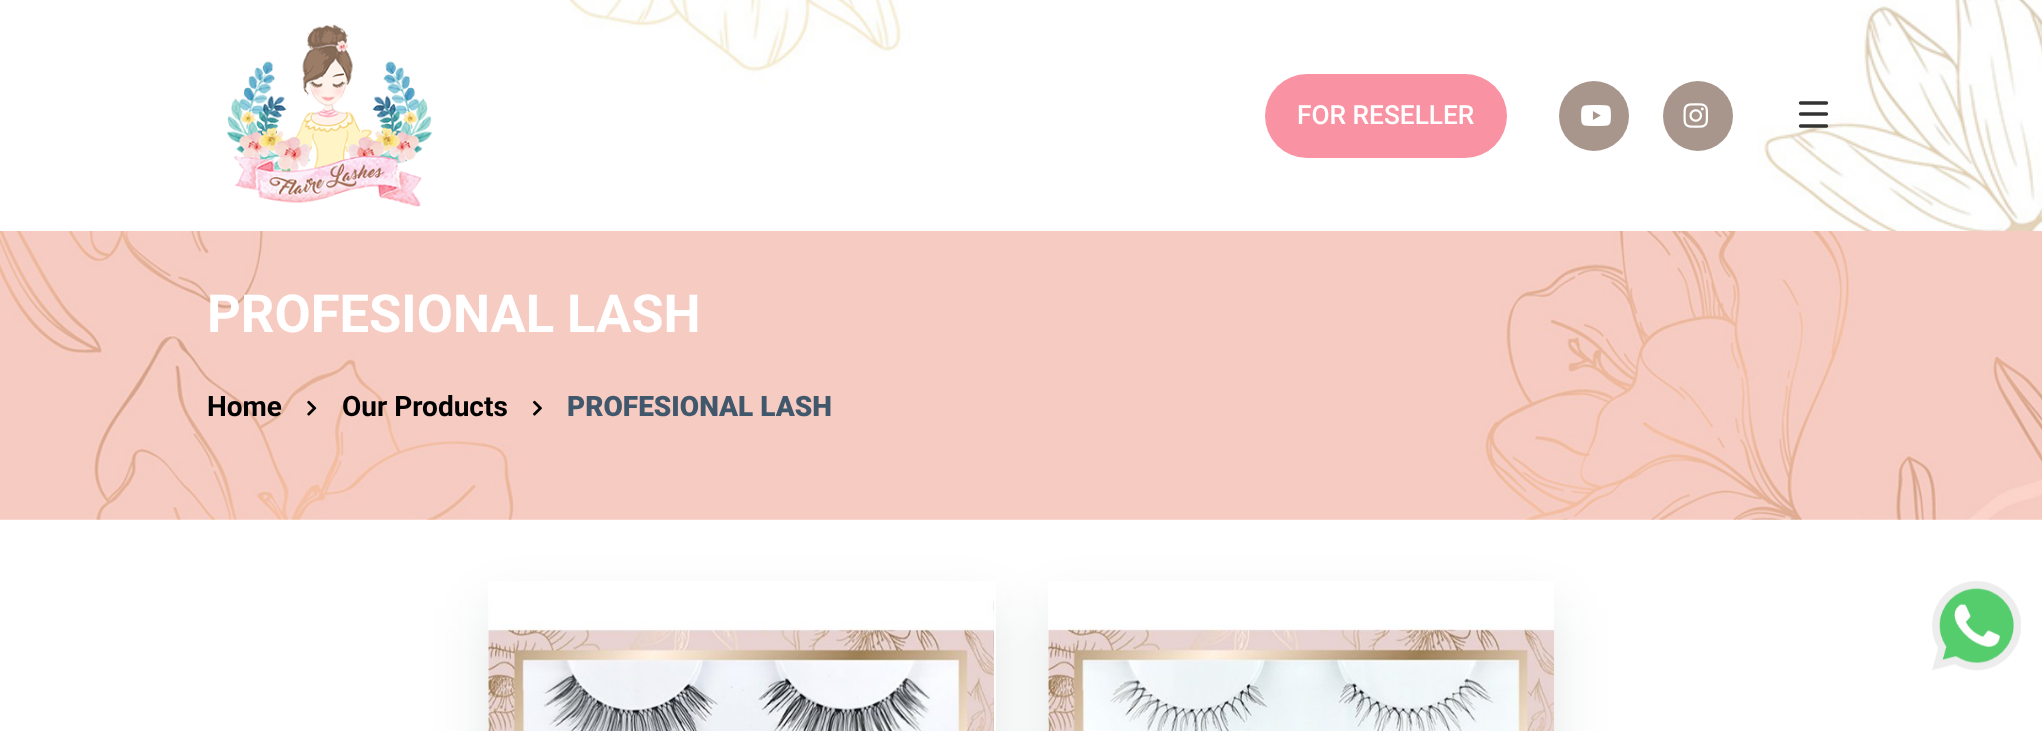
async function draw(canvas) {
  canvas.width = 2042;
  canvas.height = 731;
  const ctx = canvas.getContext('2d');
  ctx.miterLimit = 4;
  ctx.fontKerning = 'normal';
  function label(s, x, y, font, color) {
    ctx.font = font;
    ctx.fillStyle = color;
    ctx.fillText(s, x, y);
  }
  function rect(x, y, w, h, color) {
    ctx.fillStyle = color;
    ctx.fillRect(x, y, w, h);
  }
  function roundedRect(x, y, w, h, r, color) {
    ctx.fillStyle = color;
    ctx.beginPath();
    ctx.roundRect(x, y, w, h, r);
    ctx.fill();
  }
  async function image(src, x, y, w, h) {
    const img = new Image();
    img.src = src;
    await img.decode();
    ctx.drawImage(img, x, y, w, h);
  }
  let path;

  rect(0, 0, 2042, 731, '#fff');
  await image('assets/img1.png', 569, 0, 1473, 231);
  await image('assets/img2.png', 227, 24, 205, 183);
  roundedRect(1265, 74, 242, 84, 42, '#f992a3');
  label('FOR RESELLER', 1297, 124, '500 26.25px Roboto', '#fff');
  ctx.fillStyle = '#a8968c';
  ctx.beginPath();
  ctx.arc(1594, 116, 35, 0, 2 * Math.PI);
  ctx.fill();
  await image('assets/img3.png', 1581, 105, 30, 21);
  ctx.beginPath();
  ctx.arc(1698, 116, 35, 0, 2 * Math.PI);
  ctx.fill();
  await image('assets/img4.png', 1683, 103, 25, 25);
  path = new Path2D('M1800.5 103H1826.5M1800.5 114H1826.5M1800.5 126H1826.5');
  ctx.strokeStyle = '#333';
  ctx.lineWidth = 3.3;
  ctx.lineCap = 'round';
  ctx.stroke(path);
  await image('assets/img5.png', 0, 231, 2042, 289);
  label('PROFESIONAL LASH', 207, 332, 'bold 52.5px Roboto', '#fff');
  label('Home', 207, 416, 'bold 28px Roboto', '#000');
  await image('assets/img6.png', 307, 400, 10, 16);
  label('Our Products', 342, 416, 'bold 28px Roboto', '#000');
  await image('assets/img7.png', 533, 400, 9, 16);
  label('PROFESIONAL LASH', 567, 416, '900 28px Roboto', '#40576c');
  ctx.save();
  path = new Path2D('M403 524H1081V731H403ZM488 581H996V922H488Z');
  ctx.clip(path, 'evenodd');
  ctx.fillStyle = '#071c1f1a';
  ctx.filter = 'blur(28px)';
  ctx.beginPath();
  ctx.rect(488, 609, 508, 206);
  ctx.fill();
  ctx.filter = 'none';
  ctx.restore();
  await image('assets/img8.png', 488, 601, 506, 130);
  ctx.save();
  path = new Path2D('M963 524H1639V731H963ZM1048 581H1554V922H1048Z');
  ctx.clip(path, 'evenodd');
  ctx.fillStyle = '#071c1f1a';
  ctx.filter = 'blur(28px)';
  ctx.beginPath();
  ctx.rect(1048, 609, 506, 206);
  ctx.fill();
  ctx.filter = 'none';
  ctx.restore();
  await image('assets/img9.png', 1048, 624, 506, 107);
  await image('assets/img10.png', 1932, 581, 89, 90);
}

draw(document.querySelector('canvas'));
